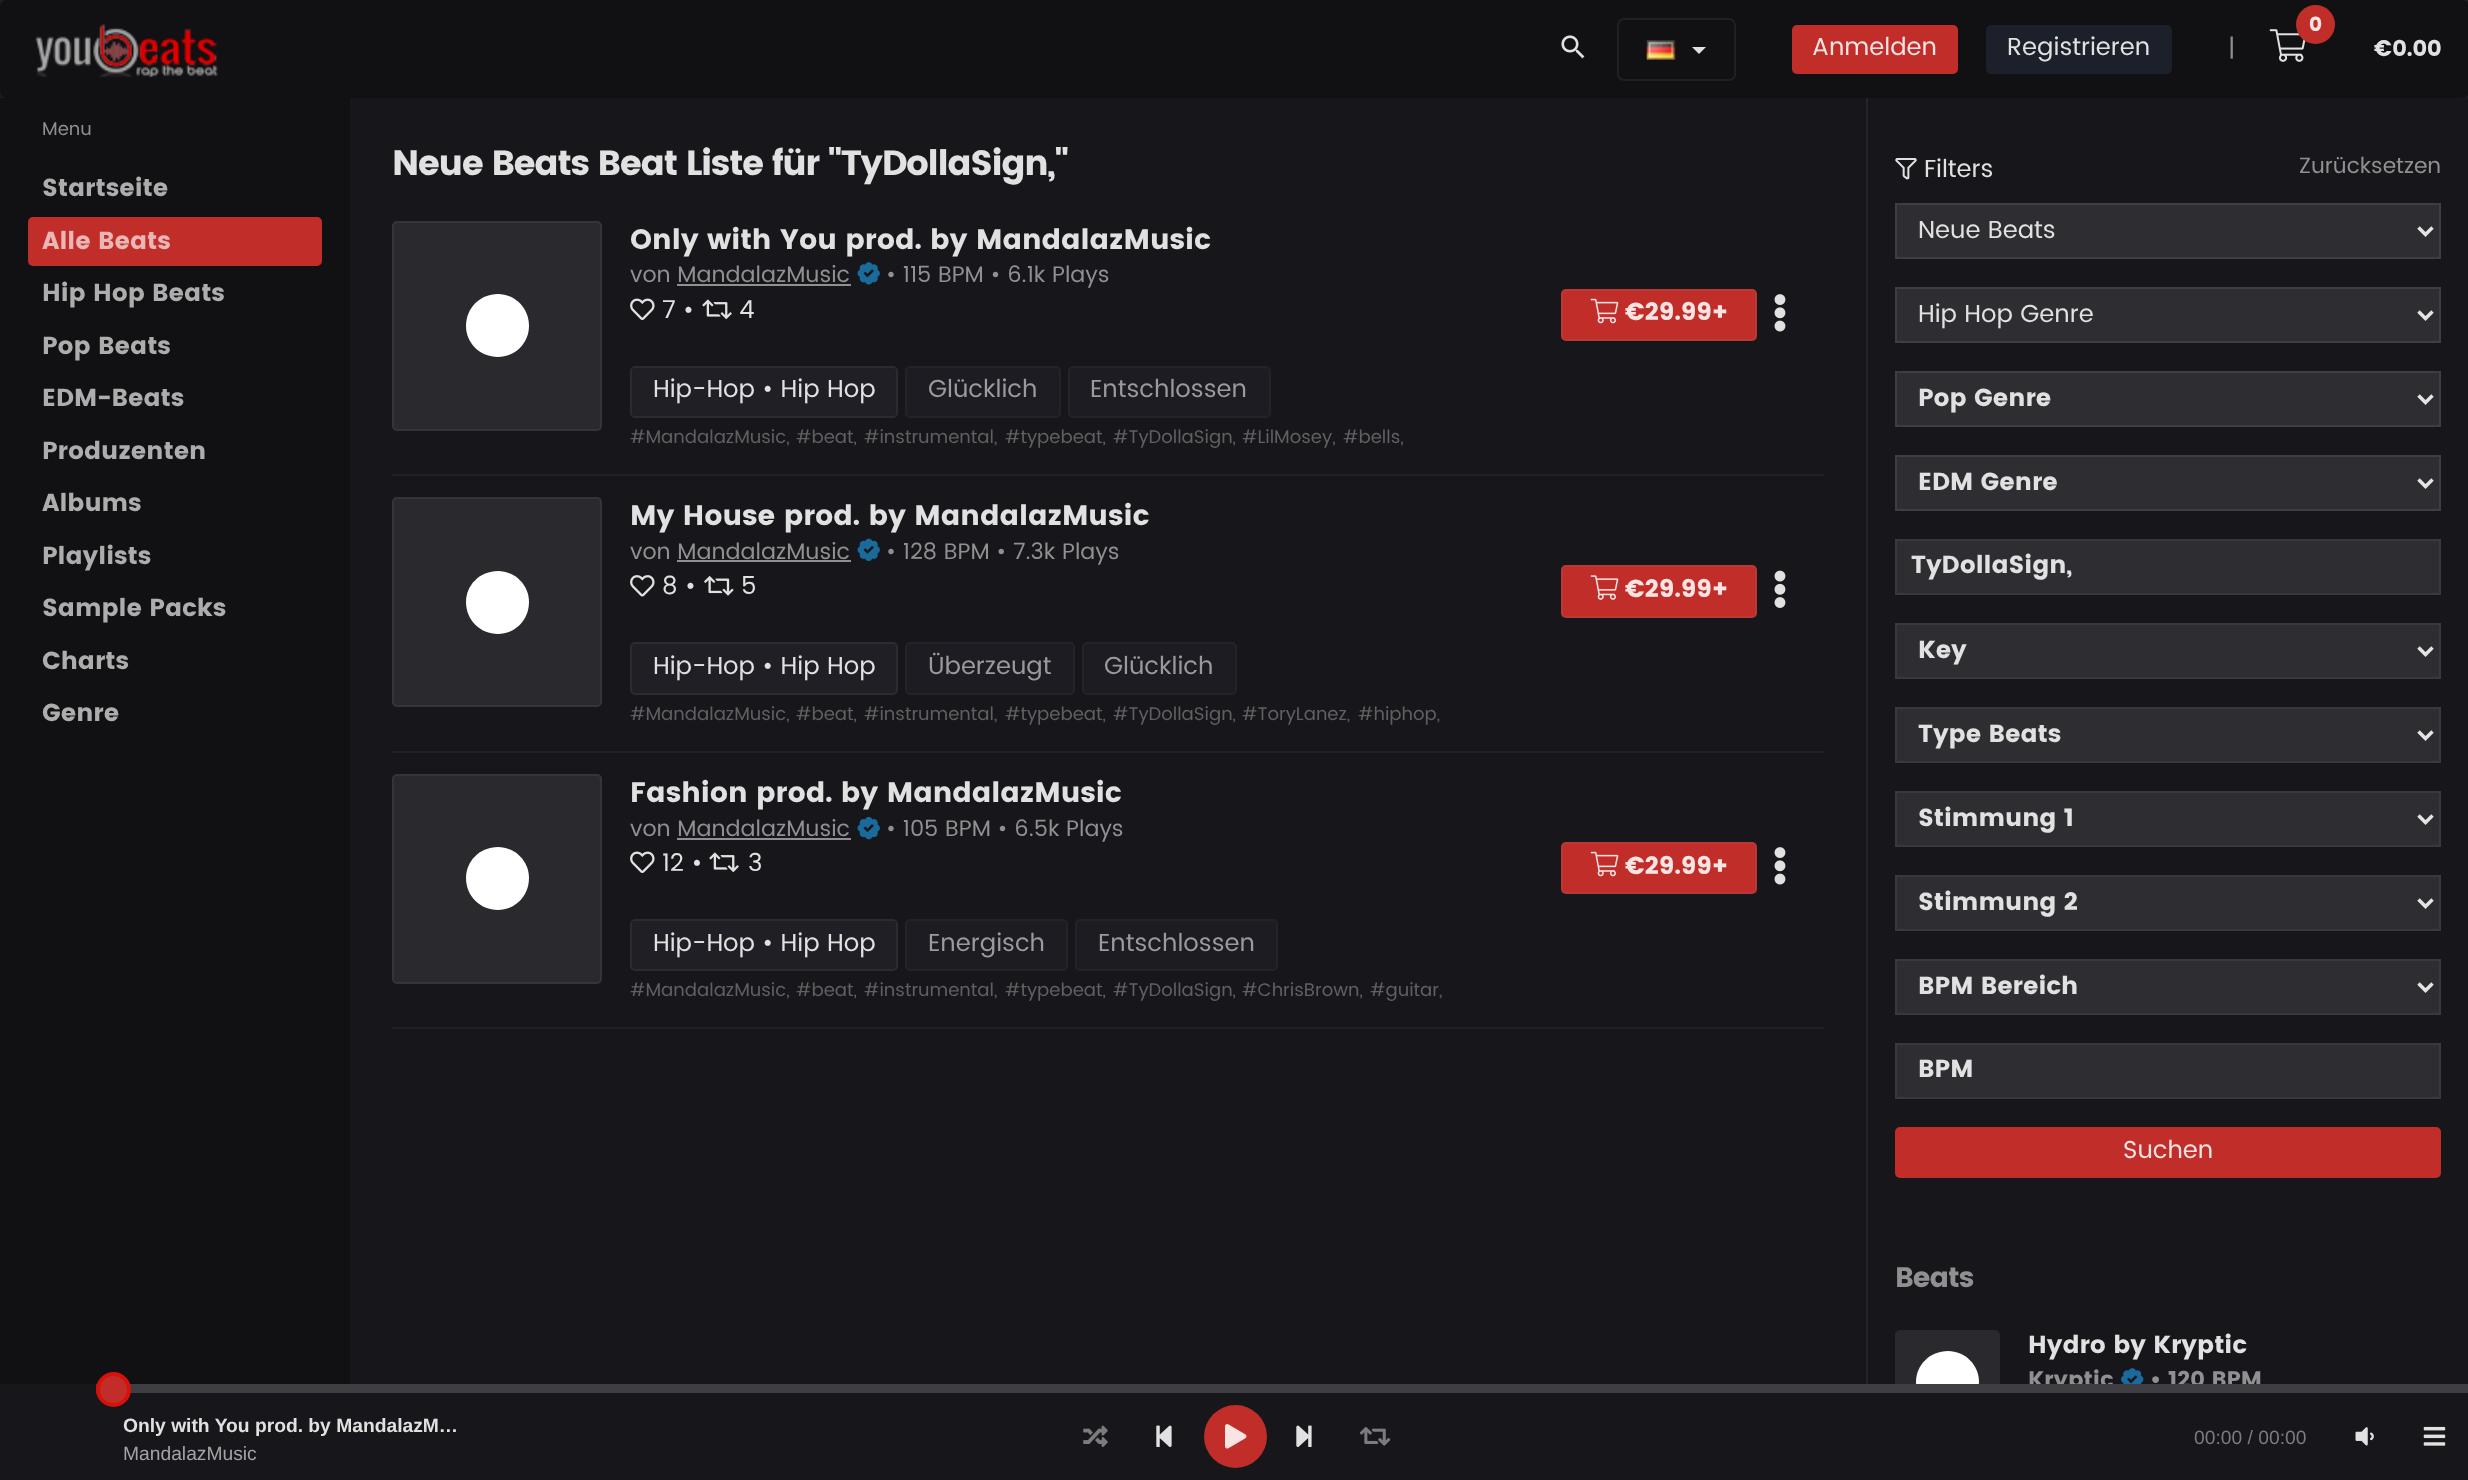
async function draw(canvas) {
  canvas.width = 2468;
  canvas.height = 1480;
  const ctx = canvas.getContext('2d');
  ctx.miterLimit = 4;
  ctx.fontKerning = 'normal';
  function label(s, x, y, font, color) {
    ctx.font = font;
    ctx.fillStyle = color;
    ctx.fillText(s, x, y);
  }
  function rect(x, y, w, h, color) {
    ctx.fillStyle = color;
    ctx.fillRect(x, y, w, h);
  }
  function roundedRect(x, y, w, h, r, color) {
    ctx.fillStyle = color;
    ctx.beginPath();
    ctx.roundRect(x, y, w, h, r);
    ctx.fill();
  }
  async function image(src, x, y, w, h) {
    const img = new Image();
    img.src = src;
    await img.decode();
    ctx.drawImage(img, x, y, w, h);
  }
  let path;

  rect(0, 0, 2468, 1480, '#111114');
  rect(350, 98, 2118, 1286, '#17171b');
  rect(1866, 96, 2, 1288, '#24252a');
  rect(0, 0, 2468, 98, '#1d1d22');
  roundedRect(0, 0, 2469, 98, 7, '#111114');
  await image('assets/img1.png', 35, 24, 183, 53);
  await image('assets/img2.png', 1561, 35, 24, 24);
  ctx.beginPath();
  ctx.roundRect(1618, 19, 117, 61, 6);
  ctx.strokeStyle = '#1e2024';
  ctx.lineWidth = 2;
  ctx.stroke();
  await image('assets/img3.png', 1646, 40, 30, 20);
  ctx.fillStyle = '#e0e0e0';
  path = new Path2D('M1692 47H1706L1699 54Z');
  ctx.fill(path);
  roundedRect(1792, 25, 166, 49, 5, '#c12e2a');
  label('Anmelden', 1812, 55, '24.5px Poppins', '#f7e4e3');
  roundedRect(1986, 25, 186, 49, 5, '#1c202b');
  label('Registrieren', 2007, 55, '24.5px Poppins', '#e1e1e1');
  label('|', 2228, 56, '24.5px Poppins', '#909092');
  await image('assets/img4.png', 2269, 29, 37, 33);
  ctx.fillStyle = '#c12e2a';
  ctx.beginPath();
  ctx.arc(2315.5, 24.5, 19.5, 0, 2 * Math.PI);
  ctx.fill();
  label('0', 2309, 31, 'bold 20px Poppins', '#f7e4e3');
  label('€0.00', 2374, 56, 'bold 22.4px Poppins', '#e1e1e1');
  label('Menu', 42, 135, '18.25px Poppins', '#909092');
  label('Startseite', 42, 196, 'bold 24.5px Poppins', '#adadad');
  roundedRect(28, 217, 294, 49, 5, '#c12e2a');
  label('Alle Beats', 42, 249, 'bold 24.5px Poppins', '#eab7b5');
  label('Hip Hop Beats', 42, 301, 'bold 24.5px Poppins', '#adadad');
  label('Pop Beats', 42, 354, 'bold 24.5px Poppins', '#adadad');
  label('EDM-Beats', 42, 406, 'bold 24.5px Poppins', '#adadad');
  label('Produzenten', 42, 459, 'bold 24.5px Poppins', '#adadad');
  label('Albums', 42, 511, 'bold 24.5px Poppins', '#adadad');
  label('Playlists', 42, 564, 'bold 24.5px Poppins', '#adadad');
  label('Sample Packs', 42, 616, 'bold 24.5px Poppins', '#adadad');
  label('Charts', 42, 669, 'bold 24.5px Poppins', '#adadad');
  label('Genre', 42, 721, 'bold 24.5px Poppins', '#adadad');
  ctx.letterSpacing = '-1.4px';
  label('Neue Beats Beat Liste für "TyDollaSign,"', 392, 175, 'bold 35px Poppins', '#e1e1e1');
  roundedRect(392, 221, 210, 210, 5, '#2a2a2e');
  ctx.beginPath();
  ctx.roundRect(393, 222, 208, 208, 4);
  ctx.strokeStyle = '#78828c21';
  ctx.stroke();
  ctx.fillStyle = '#fff';
  path = new Path2D('M498 294C515 294 529 308 529 326C529 343 515 357 498 357C480 357 466 343 466 326C466 308 480 294 498 294Z');
  ctx.fill(path);
  ctx.letterSpacing = '0px';
  label('Only with You prod. by MandalazMusic', 630, 249, 'bold 28px Poppins', '#e1e1e1');
  label('von MandalazMusic', 630, 282, '22.4px Poppins', '#909092');
  await image('assets/img5.png', 857, 262, 23, 23);
  label('• 115 BPM • 6.1k Plays', 886, 282, '22.4px Poppins', '#909092');
  rect(677, 284, 174, 2, '#909092');
  await image('assets/img6.png', 630, 298, 25, 22);
  label('7 •', 662, 318, '24.5px Poppins', '#e1e1e1');
  await image('assets/img7.png', 702, 299, 30, 21);
  label('4', 739, 318, '24.5px Poppins', '#e1e1e1');
  roundedRect(1561, 289, 196, 52, 5, '#c12e2a');
  ctx.beginPath();
  ctx.roundRect(1562, 290, 194, 50, 4);
  ctx.stroke();
  await image('assets/img8.png', 1590, 298, 29, 26);
  label('€29.99+', 1625, 320, 'bold 24.5px Poppins', '#f7e4e3');
  await image('assets/img9.png', 1774, 294, 12, 38);
  roundedRect(630, 366, 268, 52, 5, '#1f1f25');
  ctx.beginPath();
  ctx.roundRect(631, 367, 266, 50, 4);
  ctx.stroke();
  label('Hip-Hop • Hip Hop', 653, 397, '24.5px Poppins', '#e1e1e1');
  roundedRect(905, 366, 156, 52, 5, '#1c1c22');
  ctx.beginPath();
  ctx.roundRect(906, 367, 154, 50, 4);
  ctx.strokeStyle = '#565d6421';
  ctx.stroke();
  label('Glücklich', 928, 397, '24.5px Poppins', '#9b9b9d');
  roundedRect(1068, 366, 203, 52, 5, '#1c1c22');
  ctx.beginPath();
  ctx.roundRect(1069, 367, 201, 50, 4);
  ctx.stroke();
  label('Entschlossen', 1090, 397, '24.5px Poppins', '#9b9b9d');
  label('#MandalazMusic,', 630, 443, '18.25px Poppins', '#606062');
  label('#beat,', 796, 443, '18.25px Poppins', '#606062');
  label('#instrumental,', 864, 443, '18.25px Poppins', '#606062');
  label('#typebeat,', 1005, 443, '18.25px Poppins', '#606062');
  label('#TyDollaSign,', 1113, 443, '18.25px Poppins', '#606062');
  label('#LilMosey,', 1242, 443, '18.25px Poppins', '#606062');
  label('#bells,', 1343, 443, '18.25px Poppins', '#606062');
  rect(392, 474, 1432, 2, '#212124');
  roundedRect(392, 497, 210, 210, 5, '#2a2a2e');
  ctx.beginPath();
  ctx.roundRect(393, 498, 208, 208, 4);
  ctx.strokeStyle = '#78828c21';
  ctx.stroke();
  ctx.fillStyle = '#fff';
  path = new Path2D('M498 571C515 571 529 585 529 602C529 620 515 634 498 634C480 634 466 620 466 602C466 585 480 571 498 571Z');
  ctx.fill(path);
  label('My House prod. by MandalazMusic', 630, 525, 'bold 28px Poppins', '#e1e1e1');
  label('von MandalazMusic', 630, 559, '22.4px Poppins', '#909092');
  await image('assets/img10.png', 857, 538, 23, 23);
  label('• 128 BPM • 7.3k Plays', 886, 559, '22.4px Poppins', '#909092');
  rect(677, 560, 174, 2, '#909092');
  await image('assets/img11.png', 630, 575, 25, 22);
  label('8 •', 662, 594, '24.5px Poppins', '#e1e1e1');
  await image('assets/img12.png', 704, 576, 30, 20);
  label('5', 741, 594, '24.5px Poppins', '#e1e1e1');
  roundedRect(1561, 565, 196, 53, 5, '#c12e2a');
  ctx.beginPath();
  ctx.roundRect(1562, 566, 194, 51, 4);
  ctx.stroke();
  await image('assets/img13.png', 1590, 575, 29, 25);
  label('€29.99+', 1625, 597, 'bold 24.5px Poppins', '#f7e4e3');
  await image('assets/img14.png', 1774, 570, 12, 38);
  roundedRect(630, 642, 268, 53, 5, '#1f1f25');
  ctx.beginPath();
  ctx.roundRect(631, 643, 266, 51, 4);
  ctx.stroke();
  label('Hip-Hop • Hip Hop', 653, 674, '24.5px Poppins', '#e1e1e1');
  roundedRect(905, 642, 170, 53, 5, '#1c1c22');
  ctx.beginPath();
  ctx.roundRect(906, 643, 168, 51, 4);
  ctx.strokeStyle = '#565d6421';
  ctx.stroke();
  label('Überzeugt', 928, 674, '24.5px Poppins', '#9b9b9d');
  roundedRect(1082, 642, 155, 53, 5, '#1c1c22');
  ctx.beginPath();
  ctx.roundRect(1083, 643, 153, 51, 4);
  ctx.stroke();
  label('Glücklich', 1104, 674, '24.5px Poppins', '#9b9b9d');
  label('#MandalazMusic,', 630, 720, '18.25px Poppins', '#606062');
  label('#beat,', 796, 720, '18.25px Poppins', '#606062');
  label('#instrumental,', 864, 720, '18.25px Poppins', '#606062');
  label('#typebeat,', 1005, 720, '18.25px Poppins', '#606062');
  label('#TyDollaSign,', 1113, 720, '18.25px Poppins', '#606062');
  label('#ToryLanez,', 1242, 720, '18.25px Poppins', '#606062');
  label('#hiphop,', 1358, 720, '18.25px Poppins', '#606062');
  rect(392, 751, 1432, 2, '#212124');
  roundedRect(392, 774, 210, 210, 5, '#2a2a2e');
  ctx.beginPath();
  ctx.roundRect(393, 775, 208, 208, 4);
  ctx.strokeStyle = '#78828c21';
  ctx.stroke();
  ctx.fillStyle = '#fff';
  path = new Path2D('M498 847C515 847 529 861 529 878C529 896 515 910 498 910C480 910 466 896 466 878C466 861 480 847 498 847Z');
  ctx.fill(path);
  label('Fashion prod. by MandalazMusic', 630, 802, 'bold 28px Poppins', '#e1e1e1');
  label('von MandalazMusic', 630, 836, '22.4px Poppins', '#909092');
  await image('assets/img15.png', 857, 816, 23, 24);
  label('• 105 BPM • 6.5k Plays', 886, 836, '22.4px Poppins', '#909092');
  rect(677, 838, 174, 2, '#909092');
  await image('assets/img6.png', 630, 851, 25, 22);
  label('12 •', 662, 871, '24.5px Poppins', '#e1e1e1');
  await image('assets/img7.png', 709, 852, 30, 21);
  label('3', 748, 871, '24.5px Poppins', '#e1e1e1');
  roundedRect(1561, 842, 196, 52, 5, '#c12e2a');
  ctx.beginPath();
  ctx.roundRect(1562, 843, 194, 50, 4);
  ctx.stroke();
  await image('assets/img8.png', 1590, 851, 29, 26);
  label('€29.99+', 1625, 874, 'bold 24.5px Poppins', '#f7e4e3');
  await image('assets/img9.png', 1774, 847, 12, 38);
  roundedRect(630, 919, 268, 52, 5, '#1f1f25');
  ctx.beginPath();
  ctx.roundRect(631, 920, 266, 50, 4);
  ctx.stroke();
  label('Hip-Hop • Hip Hop', 653, 951, '24.5px Poppins', '#e1e1e1');
  roundedRect(905, 919, 163, 52, 5, '#1c1c22');
  ctx.beginPath();
  ctx.roundRect(906, 920, 161, 50, 4);
  ctx.strokeStyle = '#565d6421';
  ctx.stroke();
  label('Energisch', 928, 951, '24.5px Poppins', '#9b9b9d');
  roundedRect(1075, 919, 203, 52, 5, '#1c1c22');
  ctx.beginPath();
  ctx.roundRect(1076, 920, 201, 50, 4);
  ctx.stroke();
  label('Entschlossen', 1098, 951, '24.5px Poppins', '#9b9b9d');
  label('#MandalazMusic,', 630, 996, '18.25px Poppins', '#606062');
  label('#beat,', 796, 996, '18.25px Poppins', '#606062');
  label('#instrumental,', 864, 996, '18.25px Poppins', '#606062');
  label('#typebeat,', 1005, 996, '18.25px Poppins', '#606062');
  label('#TyDollaSign,', 1113, 996, '18.25px Poppins', '#606062');
  label('#ChrisBrown,', 1242, 996, '18.25px Poppins', '#606062');
  label('#guitar,', 1370, 996, '18.25px Poppins', '#606062');
  rect(392, 1027, 1432, 2, '#212124');
  await image('assets/img16.png', 1895, 158, 22, 22);
  label('Filters', 1924, 177, '24.5px Poppins', '#e1e1e1');
  label('Zurücksetzen', 2299, 173, '22px Poppins', '#909092');
  ctx.fillStyle = '#2e2e32';
  ctx.beginPath();
  ctx.rect(1896, 204, 544, 54);
  ctx.fill();
  ctx.strokeStyle = '#3d3f44';
  ctx.stroke();
  path = new Path2D('M2418.5 227.5L2425.5 234.5L2432.5 227.5');
  ctx.strokeStyle = '#e4e4e4';
  ctx.lineWidth = 3.5;
  ctx.stroke(path);
  label('Neue Beats', 1918, 238, '24.5px Poppins', '#e1e1e1');
  ctx.fillStyle = '#2e2e32';
  ctx.beginPath();
  ctx.rect(1896, 288, 544, 54);
  ctx.fill();
  ctx.strokeStyle = '#3d3f44';
  ctx.lineWidth = 2;
  ctx.stroke();
  path = new Path2D('M2418.5 311.5L2425.5 318.5L2432.5 311.5');
  ctx.strokeStyle = '#e4e4e4';
  ctx.lineWidth = 3.5;
  ctx.stroke(path);
  label('Hip Hop Genre', 1918, 322, '24.5px Poppins', '#e1e1e1');
  ctx.fillStyle = '#2e2e32';
  ctx.beginPath();
  ctx.rect(1896, 372, 544, 54);
  ctx.fill();
  ctx.strokeStyle = '#3d3f44';
  ctx.lineWidth = 2;
  ctx.stroke();
  path = new Path2D('M2418.5 395.5L2425.5 402.5L2432.5 395.5');
  ctx.strokeStyle = '#e4e4e4';
  ctx.lineWidth = 3.5;
  ctx.stroke(path);
  label('Pop Genre', 1918, 406, 'bold 24.5px Poppins', '#e1e1e1');
  ctx.fillStyle = '#2e2e32';
  ctx.beginPath();
  ctx.rect(1896, 456, 544, 54);
  ctx.fill();
  ctx.strokeStyle = '#3d3f44';
  ctx.lineWidth = 2;
  ctx.stroke();
  path = new Path2D('M2418.5 479.5L2425.5 486.5L2432.5 479.5');
  ctx.strokeStyle = '#e4e4e4';
  ctx.lineWidth = 3.5;
  ctx.stroke(path);
  label('EDM Genre', 1918, 490, 'bold 24.5px Poppins', '#e1e1e1');
  ctx.fillStyle = '#2e2e32';
  ctx.beginPath();
  ctx.rect(1896, 540, 544, 54);
  ctx.fill();
  ctx.strokeStyle = '#38393e';
  ctx.lineWidth = 2;
  ctx.stroke();
  label('TyDollaSign,', 1911, 573, 'bold 24.5px Poppins', '#e1e1e1');
  ctx.fillStyle = '#2e2e32';
  ctx.beginPath();
  ctx.rect(1896, 624, 544, 54);
  ctx.fill();
  ctx.stroke();
  path = new Path2D('M2418.5 647.5L2425.5 654.5L2432.5 647.5');
  ctx.strokeStyle = '#e4e4e4';
  ctx.lineWidth = 3.5;
  ctx.stroke(path);
  label('Key', 1918, 658, 'bold 24.5px Poppins', '#e1e1e1');
  ctx.fillStyle = '#2e2e32';
  ctx.beginPath();
  ctx.rect(1896, 708, 544, 54);
  ctx.fill();
  ctx.strokeStyle = '#38393e';
  ctx.lineWidth = 2;
  ctx.stroke();
  path = new Path2D('M2418.5 731.5L2425.5 738.5L2432.5 731.5');
  ctx.strokeStyle = '#e4e4e4';
  ctx.lineWidth = 3.5;
  ctx.stroke(path);
  label('Type Beats', 1918, 742, 'bold 24.5px Poppins', '#e1e1e1');
  ctx.fillStyle = '#2e2e32';
  ctx.beginPath();
  ctx.rect(1896, 792, 544, 54);
  ctx.fill();
  ctx.strokeStyle = '#38393e';
  ctx.lineWidth = 2;
  ctx.stroke();
  path = new Path2D('M2418.5 815.5L2425.5 822.5L2432.5 815.5');
  ctx.strokeStyle = '#e4e4e4';
  ctx.lineWidth = 3.5;
  ctx.stroke(path);
  label('Stimmung 1', 1918, 826, 'bold 24.5px Poppins', '#e1e1e1');
  ctx.fillStyle = '#2e2e32';
  ctx.beginPath();
  ctx.rect(1896, 876, 544, 54);
  ctx.fill();
  ctx.strokeStyle = '#38393e';
  ctx.lineWidth = 2;
  ctx.stroke();
  path = new Path2D('M2418.5 899.5L2425.5 906.5L2432.5 899.5');
  ctx.strokeStyle = '#e4e4e4';
  ctx.lineWidth = 3.5;
  ctx.stroke(path);
  label('Stimmung 2', 1918, 910, 'bold 24.5px Poppins', '#e1e1e1');
  ctx.fillStyle = '#2e2e32';
  ctx.beginPath();
  ctx.rect(1896, 960, 544, 54);
  ctx.fill();
  ctx.strokeStyle = '#38393e';
  ctx.lineWidth = 2;
  ctx.stroke();
  path = new Path2D('M2418.5 983.5L2425.5 990.5L2432.5 983.5');
  ctx.strokeStyle = '#e4e4e4';
  ctx.lineWidth = 3.5;
  ctx.stroke(path);
  label('BPM Bereich', 1918, 994, 'bold 24.5px Poppins', '#e1e1e1');
  ctx.fillStyle = '#2e2e32';
  ctx.beginPath();
  ctx.rect(1896, 1044, 544, 54);
  ctx.fill();
  ctx.strokeStyle = '#38393e';
  ctx.lineWidth = 2;
  ctx.stroke();
  label('BPM', 1918, 1077, 'bold 24.5px Poppins', '#e1e1e1');
  roundedRect(1895, 1127, 546, 51, 5, '#c12e2a');
  label('Suchen', 2123, 1158, '24.5px Poppins', '#f7e4e3');
  ctx.letterSpacing = '-1px';
  label('Beats', 1895, 1287, 'bold 28px Poppins', '#909092');
  roundedRect(1895, 1330, 105, 105, 5, '#2a2a2e');
  ctx.fillStyle = '#fff';
  path = new Path2D('M1948 1351C1965 1351 1979 1365 1979 1382C1979 1400 1965 1414 1948 1414C1930 1414 1916 1400 1916 1382C1916 1365 1930 1351 1948 1351Z');
  ctx.fill(path);
  ctx.letterSpacing = '0px';
  label('Hydro by Kryptic', 2028, 1353, 'bold 24.5px Poppins', '#e1e1e1');
  label('Kryptic', 2028, 1387, 'bold 22.4px Poppins', '#909092');
  await image('assets/img17.png', 2121, 1368, 23, 16);
  label('• 120 BPM', 2150, 1387, 'bold 22.4px Poppins', '#909092');
  rect(0, 1384, 2468, 96, '#17171b');
  label('Only with You prod. by MandalazM…', 123, 1432, 'bold 19.25px Liberation Sans', '#e1e1e1');
  label('MandalazMusic', 123, 1460, '19.25px Liberation Sans', '#a4a4a6');
  rect(96, 1384, 2372, 9, '#3f3f43');
  ctx.fillStyle = '#c12e2a';
  ctx.beginPath();
  ctx.arc(113.5, 1389.5, 15.5, 0, 2 * Math.PI);
  ctx.fill();
  ctx.strokeStyle = '#d8110b';
  ctx.lineWidth = 4;
  ctx.stroke();
  await image('assets/img18.png', 1083, 1425, 25, 22);
  await image('assets/img19.png', 1156, 1425, 16, 22);
  ctx.beginPath();
  ctx.arc(1235.5, 1436.5, 31.5, 0, 2 * Math.PI);
  ctx.fill();
  await image('assets/img20.png', 1225, 1424, 22, 25);
  await image('assets/img21.png', 1296, 1425, 16, 22);
  await image('assets/img22.png', 1360, 1427, 31, 19);
  label('00:00 / 00:00', 2194, 1444, '19.25px Liberation Sans', '#7c7c7e');
  await image('assets/img23.png', 2355, 1427, 19, 19);
  await image('assets/img24.png', 2423, 1426, 23, 20);
}

draw(document.querySelector('canvas'));
